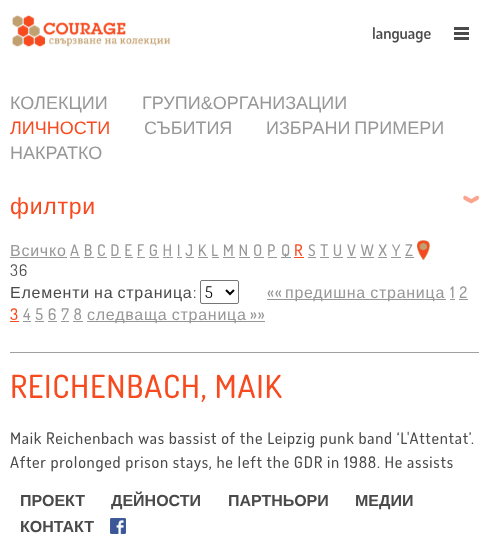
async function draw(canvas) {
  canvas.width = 489;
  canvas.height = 552;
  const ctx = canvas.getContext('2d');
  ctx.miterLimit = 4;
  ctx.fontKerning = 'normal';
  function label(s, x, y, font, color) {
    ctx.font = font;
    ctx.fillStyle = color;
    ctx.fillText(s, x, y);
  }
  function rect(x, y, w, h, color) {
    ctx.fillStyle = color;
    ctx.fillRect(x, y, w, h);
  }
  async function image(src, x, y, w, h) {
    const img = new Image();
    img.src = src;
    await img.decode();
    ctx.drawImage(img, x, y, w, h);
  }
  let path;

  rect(0, 0, 489, 552, '#fff');
  await image('assets/img1.png', 12, 15, 158, 32);
  label('language', 372, 39, '600 16px "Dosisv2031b"', '#4b4a4a');
  rect(454, 27, 15, 3, '#4b4a4a');
  rect(454, 37, 15, 3, '#4b4a4a');
  rect(454, 32, 15, 3, '#4b4a4a');
  label('КОЛЕКЦИИ', 10, 109, '18px Liberation Sans', '#979797');
  label('ГРУПИ&ОРГАНИЗАЦИИ', 142, 109, '18px Liberation Sans', '#979797');
  label('ЛИЧНОСТИ', 10, 134, '18px Liberation Sans', '#f74a1f');
  label('СЪБИТИЯ', 144, 134, '18px Liberation Sans', '#979797');
  ctx.wordSpacing = '-1px';
  label('ИЗБРАНИ ПРИМЕРИ', 266, 134, '18px Liberation Sans', '#979797');
  ctx.wordSpacing = '0px';
  label('НАКРАТКО', 10, 159, '18px Liberation Sans', '#979797');
  ctx.letterSpacing = '0.75px';
  label('филтри', 10, 214, '23px Liberation Sans', '#f74a1f');
  ctx.font = 'bold 55px Dosis';
  ctx.fillStyle = '#fba58f';
  ctx.save();
  ctx.translate(479, 164);
  ctx.rotate(180 * Math.PI / 180);
  ctx.fillText('ˆ', 0, 0);
  ctx.restore();
  label('Всичко', 10, 256, '16px Liberation Sans', '#979797');
  rect(10, 257, 57, 1, '#979797');
  label('A B C D E F G H I J K L M N O P', 70, 256, '500 16px "Dosisv2031b"', '#979797');
  rect(70, 257, 10, 1, '#979797');
  rect(281, 257, 10, 1, '#979797');
  label('Q', 281, 256, '500 16px "Dosisv2031b"', '#979797');
  label('R', 294, 256, '500 16px "Dosisv2031b"', '#f74a1f');
  rect(294, 257, 10, 1, '#f74a1f');
  label('S T U V W X Y Z', 308, 256, '500 16px "Dosisv2031b"', '#979797');
  rect(308, 257, 8, 1, '#979797');
  await image('assets/img2.png', 417, 240, 13, 20);
  rect(84, 257, 10, 1, '#979797');
  rect(97, 257, 10, 1, '#979797');
  rect(111, 257, 10, 1, '#979797');
  rect(125, 257, 8, 1, '#979797');
  rect(137, 257, 8, 1, '#979797');
  rect(149, 257, 10, 1, '#979797');
  rect(163, 257, 10, 1, '#979797');
  rect(177, 257, 5, 1, '#979797');
  rect(186, 257, 8, 1, '#979797');
  rect(198, 257, 10, 1, '#979797');
  rect(212, 257, 7, 1, '#979797');
  rect(223, 257, 12, 1, '#979797');
  rect(239, 257, 11, 1, '#979797');
  rect(254, 257, 10, 1, '#979797');
  rect(268, 257, 9, 1, '#979797');
  rect(320, 257, 9, 1, '#979797');
  rect(333, 257, 10, 1, '#979797');
  rect(347, 257, 9, 1, '#979797');
  rect(360, 257, 14, 1, '#979797');
  rect(378, 257, 9, 1, '#979797');
  rect(391, 257, 10, 1, '#979797');
  rect(405, 257, 9, 1, '#979797');
  label('36', 10, 276, '16px "Dosisv2031b"', '#4b4a4a');
  ctx.wordSpacing = '-1px';
  label('Елементи на страница', 10, 298, '16px Liberation Sans', '#4b4a4a');
  ctx.wordSpacing = '0px';
  label(':', 193, 298, '16px "Dosisv2031b"', '#4b4a4a');
  ctx.beginPath();
  ctx.roundRect(200.5, 280.5, 38, 23, 1.5);
  ctx.strokeStyle = '#767676';
  ctx.stroke();
  path = new Path2D('M226 290L230 294L234 290');
  ctx.strokeStyle = '#000';
  ctx.lineWidth = 2;
  ctx.stroke(path);
  ctx.letterSpacing = '0px';
  label('5', 205, 298, '16px "Dosisv2031b"', '#000');
  ctx.letterSpacing = '0.75px';
  label('««', 267, 298, '500 16px "Dosisv2031b"', '#979797');
  rect(267, 299, 179, 1, '#979797');
  ctx.wordSpacing = '-1px';
  label('предишна страница', 285, 298, '16px Liberation Sans', '#979797');
  rect(450, 299, 5, 1, '#979797');
  ctx.wordSpacing = '0px';
  label('1 2', 450, 298, '500 16px "Dosisv2031b"', '#979797');
  rect(459, 299, 9, 1, '#979797');
  label('3', 10, 320, '500 16px "Dosisv2031b"', '#f74a1f');
  rect(10, 321, 9, 1, '#f74a1f');
  label('4 5 6 7 8', 23, 320, '500 16px "Dosisv2031b"', '#979797');
  rect(23, 321, 8, 1, '#979797');
  rect(35, 321, 9, 1, '#979797');
  rect(48, 321, 9, 1, '#979797');
  rect(61, 321, 8, 1, '#979797');
  rect(87, 321, 178, 1, '#979797');
  ctx.wordSpacing = '-1px';
  label('следваща страница', 87, 320, '16px Liberation Sans', '#979797');
  rect(73, 321, 10, 1, '#979797');
  ctx.wordSpacing = '0px';
  label('»»', 250, 320, '500 16px "Dosisv2031b"', '#979797');
  rect(10, 352, 469, 1, '#a0a0a0');
  label('REICHENBACH, MAIK', 10, 398, '500 32px "Dosisv2031b"', '#f74a1f');
  label('Maik Reichenbach was bassist of the Leipzig punk band ‘L\'Attentat’.', 10, 444, '500 16px "Dosisv2031b"', '#4b4a4a');
  label('After prolonged prison stays, he left the GDR in 1988. He assists', 10, 468, '500 16px "Dosisv2031b"', '#4b4a4a');
  ctx.letterSpacing = '0px';
  label('ПРОЕКТ', 20, 506, 'bold 16px Liberation Sans', '#4b4a4a');
  label('ДЕЙНОСТИ', 111, 506, 'bold 16px Liberation Sans', '#4b4a4a');
  label('ПАРТНЬОРИ', 228, 506, 'bold 16px Liberation Sans', '#4b4a4a');
  label('МЕДИИ', 355, 506, 'bold 16px Liberation Sans', '#4b4a4a');
  label('КОНТАКТ', 20, 532, 'bold 16px Liberation Sans', '#4b4a4a');
  await image('assets/img3.png', 110, 518, 16, 16);
}

draw(document.querySelector('canvas'));
